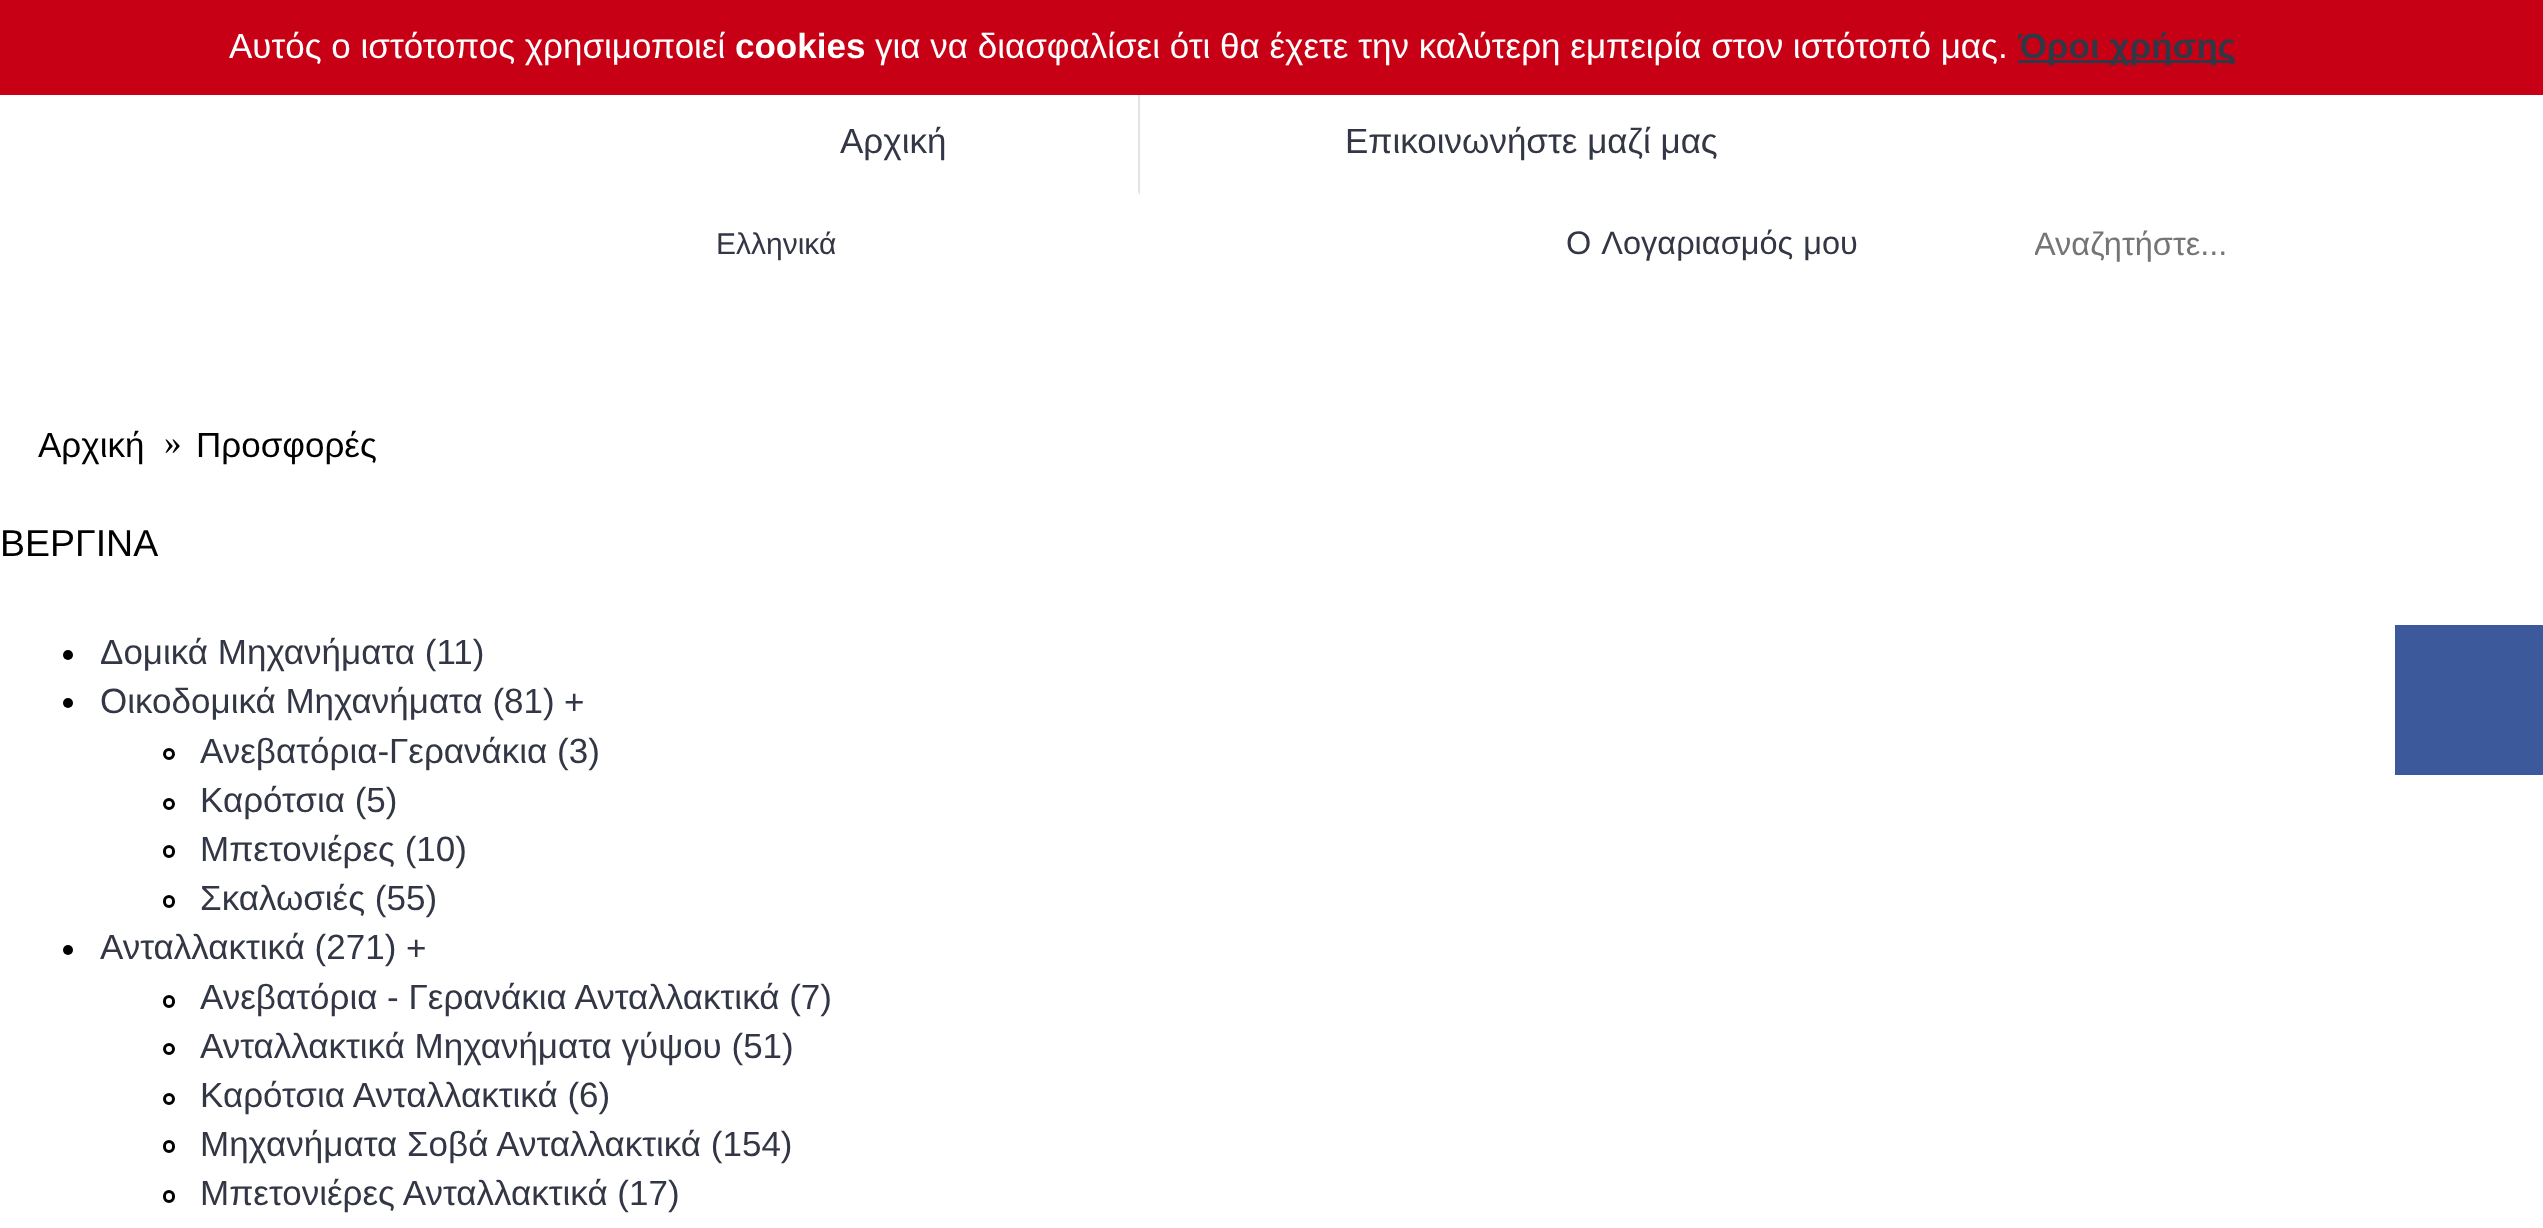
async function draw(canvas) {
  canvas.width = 2543;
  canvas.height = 1228;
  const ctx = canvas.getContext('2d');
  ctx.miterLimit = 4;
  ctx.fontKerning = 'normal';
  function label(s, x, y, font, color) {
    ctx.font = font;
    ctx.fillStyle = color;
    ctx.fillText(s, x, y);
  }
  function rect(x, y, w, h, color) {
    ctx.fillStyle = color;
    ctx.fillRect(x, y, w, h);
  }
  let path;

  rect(0, 0, 2543, 1228, '#fff');
  rect(0, 0, 2543, 95, '#c70015');
  label('Αυτός ο ιστότοπος χρησιμοποιεί', 229, 58, '35px Liberation Sans', '#fff');
  label('cookies', 735, 58, 'bold 35px Liberation Sans', '#fff');
  label('για να διασφαλίσει ότι θα έχετε την καλύτερη εμπειρία στον ιστότοπό μας.', 875, 58, '35px Liberation Sans', '#fff');
  rect(2018, 60, 217, 3, '#333745');
  label('Όροι χρήσης', 2018, 58, 'bold 35px Liberation Sans', '#333745');
  ctx.fillStyle = '#e4e4e4';
  path = new Path2D('M1140 95V195L1138 192V95Z');
  ctx.fill(path);
  label('Αρχική', 840, 153, '35px Liberation Sans', '#333745');
  label('Επικοινωνήστε μαζί μας', 1345, 153, '35px Liberation Sans', '#333745');
  label('Ελληνικά', 716, 254, '30px Liberation Sans', '#333745');
  ctx.wordSpacing = '1px';
  label('O Λογαριασμός μου', 1566, 254, '32.5px Liberation Sans', '#333745');
  ctx.save();
  ctx.beginPath();
  ctx.rect(2035, 225, 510, 38);
  ctx.clip();
  ctx.wordSpacing = '0px';
  label('Αναζητήστε...', 2034, 255, '32.5px Liberation Sans', '#757575');
  ctx.restore();
  ctx.wordSpacing = '0px';
  label('Αρχική', 38, 457, '35px Liberation Sans', '#000');
  label('»', 164, 454, '35px Liberation Serif', '#000');
  label('Προσφορές', 196, 457, '35px Liberation Sans', '#000');
  label('ΒΕΡΓΙΝΑ', 0, 556, '37.5px Liberation Sans', '#000');
  ctx.beginPath();
  ctx.arc(68, 655, 5, 0, 2 * Math.PI);
  ctx.fill();
  label('Δομικά Μηχανήματα (11)', 100, 664, '35px Liberation Sans', '#333745');
  ctx.fillStyle = '#000';
  ctx.beginPath();
  ctx.arc(68, 703, 5, 0, 2 * Math.PI);
  ctx.fill();
  label('Οικοδομικά Μηχανήματα (81)', 100, 713, '35px Liberation Sans', '#333745');
  label('+', 564, 714, '35px Liberation Sans', '#333745');
  ctx.beginPath();
  ctx.arc(169, 754, 4.5, 0, 2 * Math.PI);
  ctx.strokeStyle = '#000';
  ctx.lineWidth = 3;
  ctx.stroke();
  label('Ανεβατόρια-Γερανάκια (3)', 200, 763, '35px Liberation Sans', '#333745');
  ctx.beginPath();
  ctx.arc(169, 804, 4.5, 0, 2 * Math.PI);
  ctx.stroke();
  label('Καρότσια (5)', 200, 812, '35px Liberation Sans', '#333745');
  ctx.beginPath();
  ctx.roundRect(164.5, 846.5, 9, 10, 4.5);
  ctx.stroke();
  label('Μπετονιέρες (10)', 200, 861, '35px Liberation Sans', '#333745');
  ctx.beginPath();
  ctx.roundRect(164.5, 896.5, 9, 10, 4.5);
  ctx.stroke();
  label('Σκαλωσιές (55)', 200, 910, '35px Liberation Sans', '#333745');
  ctx.fillStyle = '#000';
  ctx.beginPath();
  ctx.arc(68, 950, 5, 0, 2 * Math.PI);
  ctx.fill();
  label('Ανταλλακτικά (271)', 100, 959, '35px Liberation Sans', '#333745');
  label('+', 406, 960, '35px Liberation Sans', '#333745');
  ctx.beginPath();
  ctx.roundRect(164.5, 996.5, 9, 10, 4.5);
  ctx.stroke();
  label('Ανεβατόρια - Γερανάκια Ανταλλακτικά (7)', 200, 1009, '35px Liberation Sans', '#333745');
  ctx.beginPath();
  ctx.arc(169, 1049, 4.5, 0, 2 * Math.PI);
  ctx.stroke();
  label('Ανταλλακτικά Μηχανήματα γύψου (51)', 200, 1058, '35px Liberation Sans', '#333745');
  ctx.beginPath();
  ctx.arc(169, 1099, 4.5, 0, 2 * Math.PI);
  ctx.stroke();
  label('Καρότσια Ανταλλακτικά (6)', 200, 1107, '35px Liberation Sans', '#333745');
  ctx.beginPath();
  ctx.roundRect(164.5, 1141.5, 9, 10, 4.5);
  ctx.stroke();
  label('Μηχανήματα Σοβά Ανταλλακτικά (154)', 200, 1156, '35px Liberation Sans', '#333745');
  ctx.beginPath();
  ctx.roundRect(164.5, 1191.5, 9, 10, 4.5);
  ctx.stroke();
  label('Μπετονιέρες Ανταλλακτικά (17)', 200, 1205, '35px Liberation Sans', '#333745');
  rect(2395, 625, 148, 150, '#3c599b');
}

draw(document.querySelector('canvas'));
